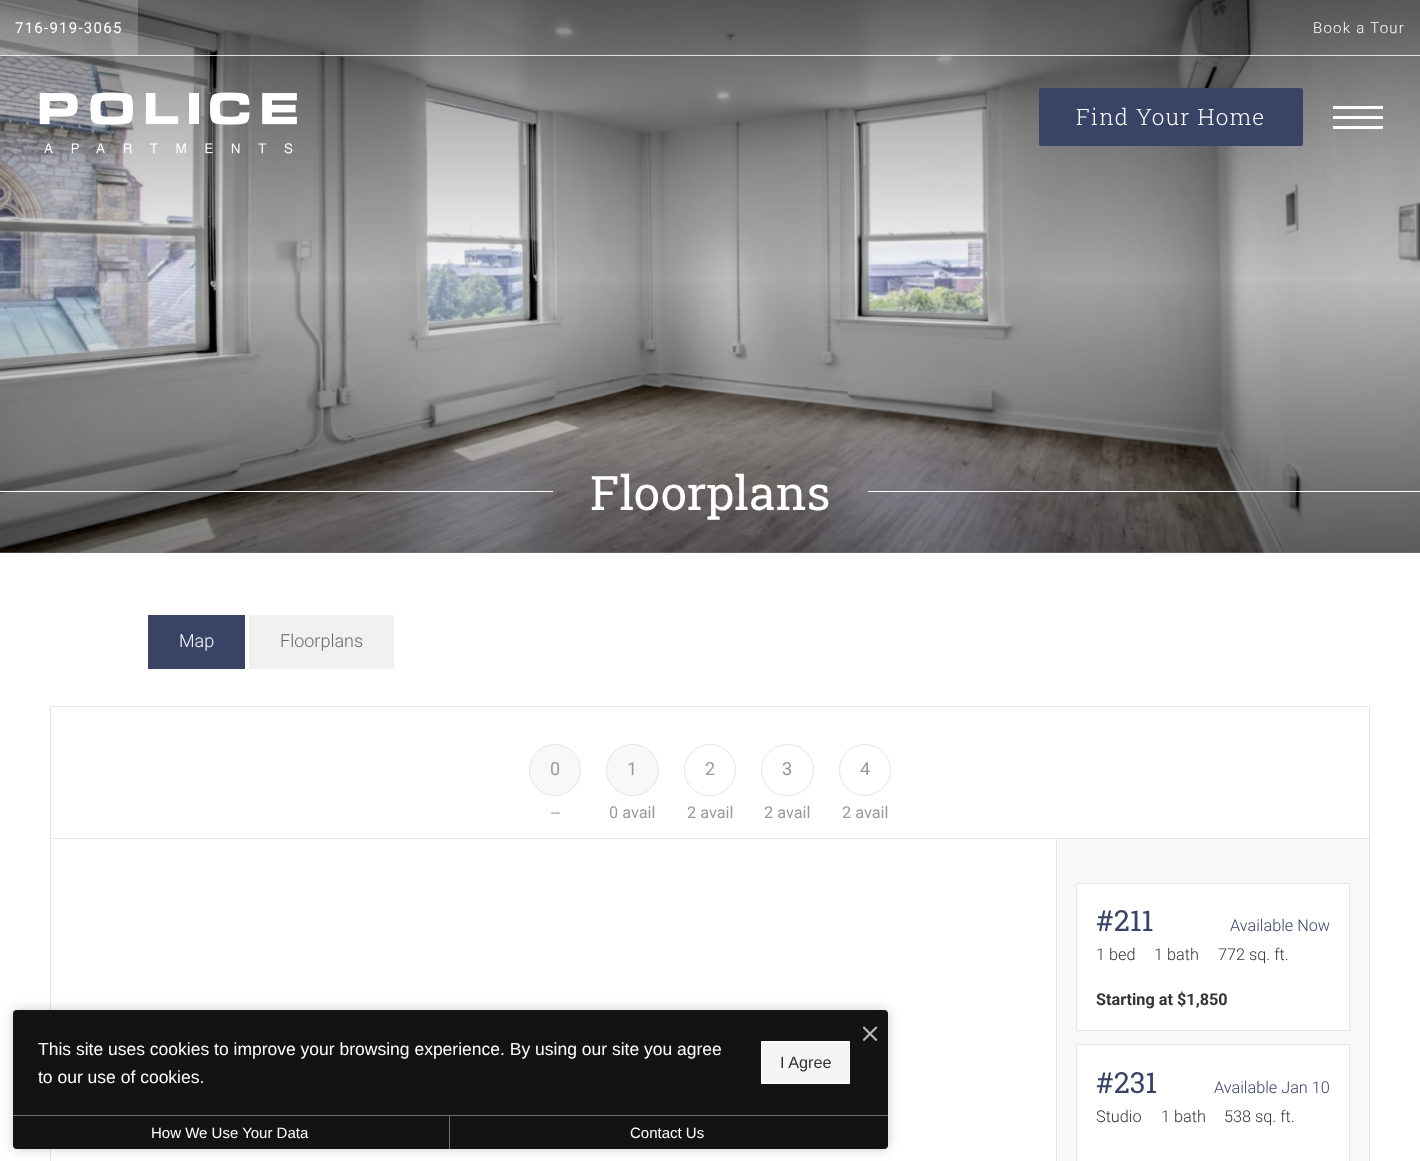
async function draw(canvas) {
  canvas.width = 1420;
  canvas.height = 1161;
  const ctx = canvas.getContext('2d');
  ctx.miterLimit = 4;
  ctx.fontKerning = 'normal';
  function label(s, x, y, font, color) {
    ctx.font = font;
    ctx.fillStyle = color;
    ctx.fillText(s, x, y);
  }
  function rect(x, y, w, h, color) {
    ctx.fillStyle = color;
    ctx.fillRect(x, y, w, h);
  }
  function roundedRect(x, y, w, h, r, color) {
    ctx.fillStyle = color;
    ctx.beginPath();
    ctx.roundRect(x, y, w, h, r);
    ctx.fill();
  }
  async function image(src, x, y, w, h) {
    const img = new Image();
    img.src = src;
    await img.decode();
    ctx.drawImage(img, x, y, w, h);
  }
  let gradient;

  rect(0, 0, 1420, 1161, '#fff');
  await image('assets/img2.png', 0, 552, 1420, 1);
  await image('assets/img3.png', 0, 0, 1420, 553);
  rect(0, 55, 1420, 1, '#ffffffcc');
  rect(0, 0, 138, 55, '#ffffff33');
  ctx.letterSpacing = '1.25px';
  label('716-919-3065', 15, 33, '15px Roboto', '#fff');
  label('Book a Tour', 1313, 33, '300 15px Roboto', '#fff');
  await image('assets/img1.png', 39, 92, 258, 62);
  roundedRect(1039, 88, 264, 58, 2.5, '#394365');
  label('Find Your Home', 1076, 125, '300 22.5px Roboto Slab', '#fff');
  rect(1333, 106, 50, 3, '#fff');
  rect(1333, 116, 50, 3, '#fff');
  rect(1333, 126, 50, 3, '#fff');
  gradient = ctx.createLinearGradient(710, 269, 710, 553);
  gradient.addColorStop(0, '#00000000');
  gradient.addColorStop(1, '#00000080');
  ctx.fillStyle = gradient;
  ctx.fillRect(0, 281, 1420, 272);
  rect(0, 491, 553, 1, '#fff');
  ctx.letterSpacing = '0px';
  label('Floorplans', 590, 510, '47.5px Roboto Slab', '#fff');
  rect(868, 491, 552, 1, '#fff');
  rect(148, 615, 97, 54, '#394365');
  label('Map', 179, 647, '300 18px Roboto', '#fff');
  rect(249, 615, 145, 54, '#f1f1f1');
  label('Floorplans', 280, 647, '300 18px Roboto', '#666');
  rect(50, 706, 1320, 1, '#e5e5e5');
  rect(1369, 706, 1, 132, '#e5e5e5');
  rect(50, 706, 1, 132, '#e5e5e5');
  ctx.fillStyle = '#f8f8f8';
  ctx.beginPath();
  ctx.arc(555, 770, 25.5, 0, 2 * Math.PI);
  ctx.fill();
  ctx.strokeStyle = '#e5e5e5';
  ctx.stroke();
  label('0', 550, 775, '18px Roboto', '#999');
  label('--', 551, 818, '16.25px Roboto', '#999');
  ctx.fillStyle = '#f8f8f8';
  ctx.beginPath();
  ctx.roundRect(606.5, 744.5, 52, 51, 25.5);
  ctx.fill();
  ctx.stroke();
  label('1', 627, 775, '18px Roboto', '#999');
  label('0 avail', 609, 818, '16.25px Roboto', '#999');
  ctx.beginPath();
  ctx.arc(710, 770, 25.5, 0, 2 * Math.PI);
  ctx.stroke();
  label('2', 705, 775, '18px Roboto', '#999');
  label('2 avail', 687, 818, '16.25px Roboto', '#999');
  ctx.beginPath();
  ctx.roundRect(761.5, 744.5, 52, 51, 25.5);
  ctx.stroke();
  label('3', 782, 775, '18px Roboto', '#999');
  label('2 avail', 764, 818, '16.25px Roboto', '#999');
  ctx.beginPath();
  ctx.arc(865, 770, 25.5, 0, 2 * Math.PI);
  ctx.stroke();
  label('4', 860, 775, '18px Roboto', '#999');
  label('2 avail', 842, 818, '16.25px Roboto', '#999');
  ctx.strokeRect(50.5, 838.5, 1319, 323);
  rect(1056, 839, 1, 322, '#e5e5e5');
  rect(1058, 839, 311, 322, '#f8f8f8');
  ctx.fillStyle = '#fff';
  ctx.beginPath();
  ctx.rect(1076.5, 883.5, 273, 147);
  ctx.fill();
  ctx.stroke();
  label('#211', 1096, 931, '29px Roboto Slab', '#394365');
  label('Available Now', 1230, 931, '300 16.25px Roboto', '#394365');
  label('1 bed', 1096, 960, '300 16.25px Roboto', '#333');
  label('1 bath', 1154, 960, '300 16.25px Roboto', '#333');
  label('772 sq. ft.', 1218, 960, '300 16.25px Roboto', '#333');
  label('Starting at $1,850', 1096, 1005, 'bold 16.25px Roboto', '#333');
  ctx.fillStyle = '#fff';
  ctx.beginPath();
  ctx.rect(1076.5, 1044.5, 273, 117);
  ctx.fill();
  ctx.stroke();
  label('#231', 1096, 1093, '29px Roboto Slab', '#394365');
  label('Available Jan 10', 1214, 1093, '300 16.25px Roboto', '#394365');
  label('Studio', 1096, 1122, '300 16.25px Roboto', '#333');
  label('1 bath', 1161, 1122, '300 16.25px Roboto', '#333');
  label('538 sq. ft.', 1224, 1122, '300 16.25px Roboto', '#333');
  ctx.fillStyle = '#00000033';
  ctx.filter = 'blur(6px)';
  ctx.beginPath();
  ctx.roundRect(13, 1010, 875, 139, 4);
  ctx.fill();
  ctx.filter = 'none';
  roundedRect(13, 1010, 875, 139, 4, '#131313');
  await image('assets/img4.png', 863, 1026, 15, 15);
  label('This site uses cookies to improve your browsing experience. By using our site you agree', 38, 1055, '17.5px Liberation Sans', '#fff');
  label('to our use of cookies.', 38, 1083, '17.5px Liberation Sans', '#fff');
  ctx.fillStyle = '#f5f5f5';
  ctx.beginPath();
  ctx.rect(761.5, 1041.5, 88, 42);
  ctx.fill();
  ctx.strokeStyle = '#fff';
  ctx.stroke();
  label('I Agree', 780, 1068, '16.25px Liberation Sans', '#333');
  rect(13, 1115, 875, 1, '#717171');
  rect(449, 1116, 1, 33, '#717171');
  label('How We Use Your Data', 151, 1138, '15px Liberation Sans', '#fff');
  label('Contact Us', 630, 1138, '15px Liberation Sans', '#fff');
}

draw(document.querySelector('canvas'));
